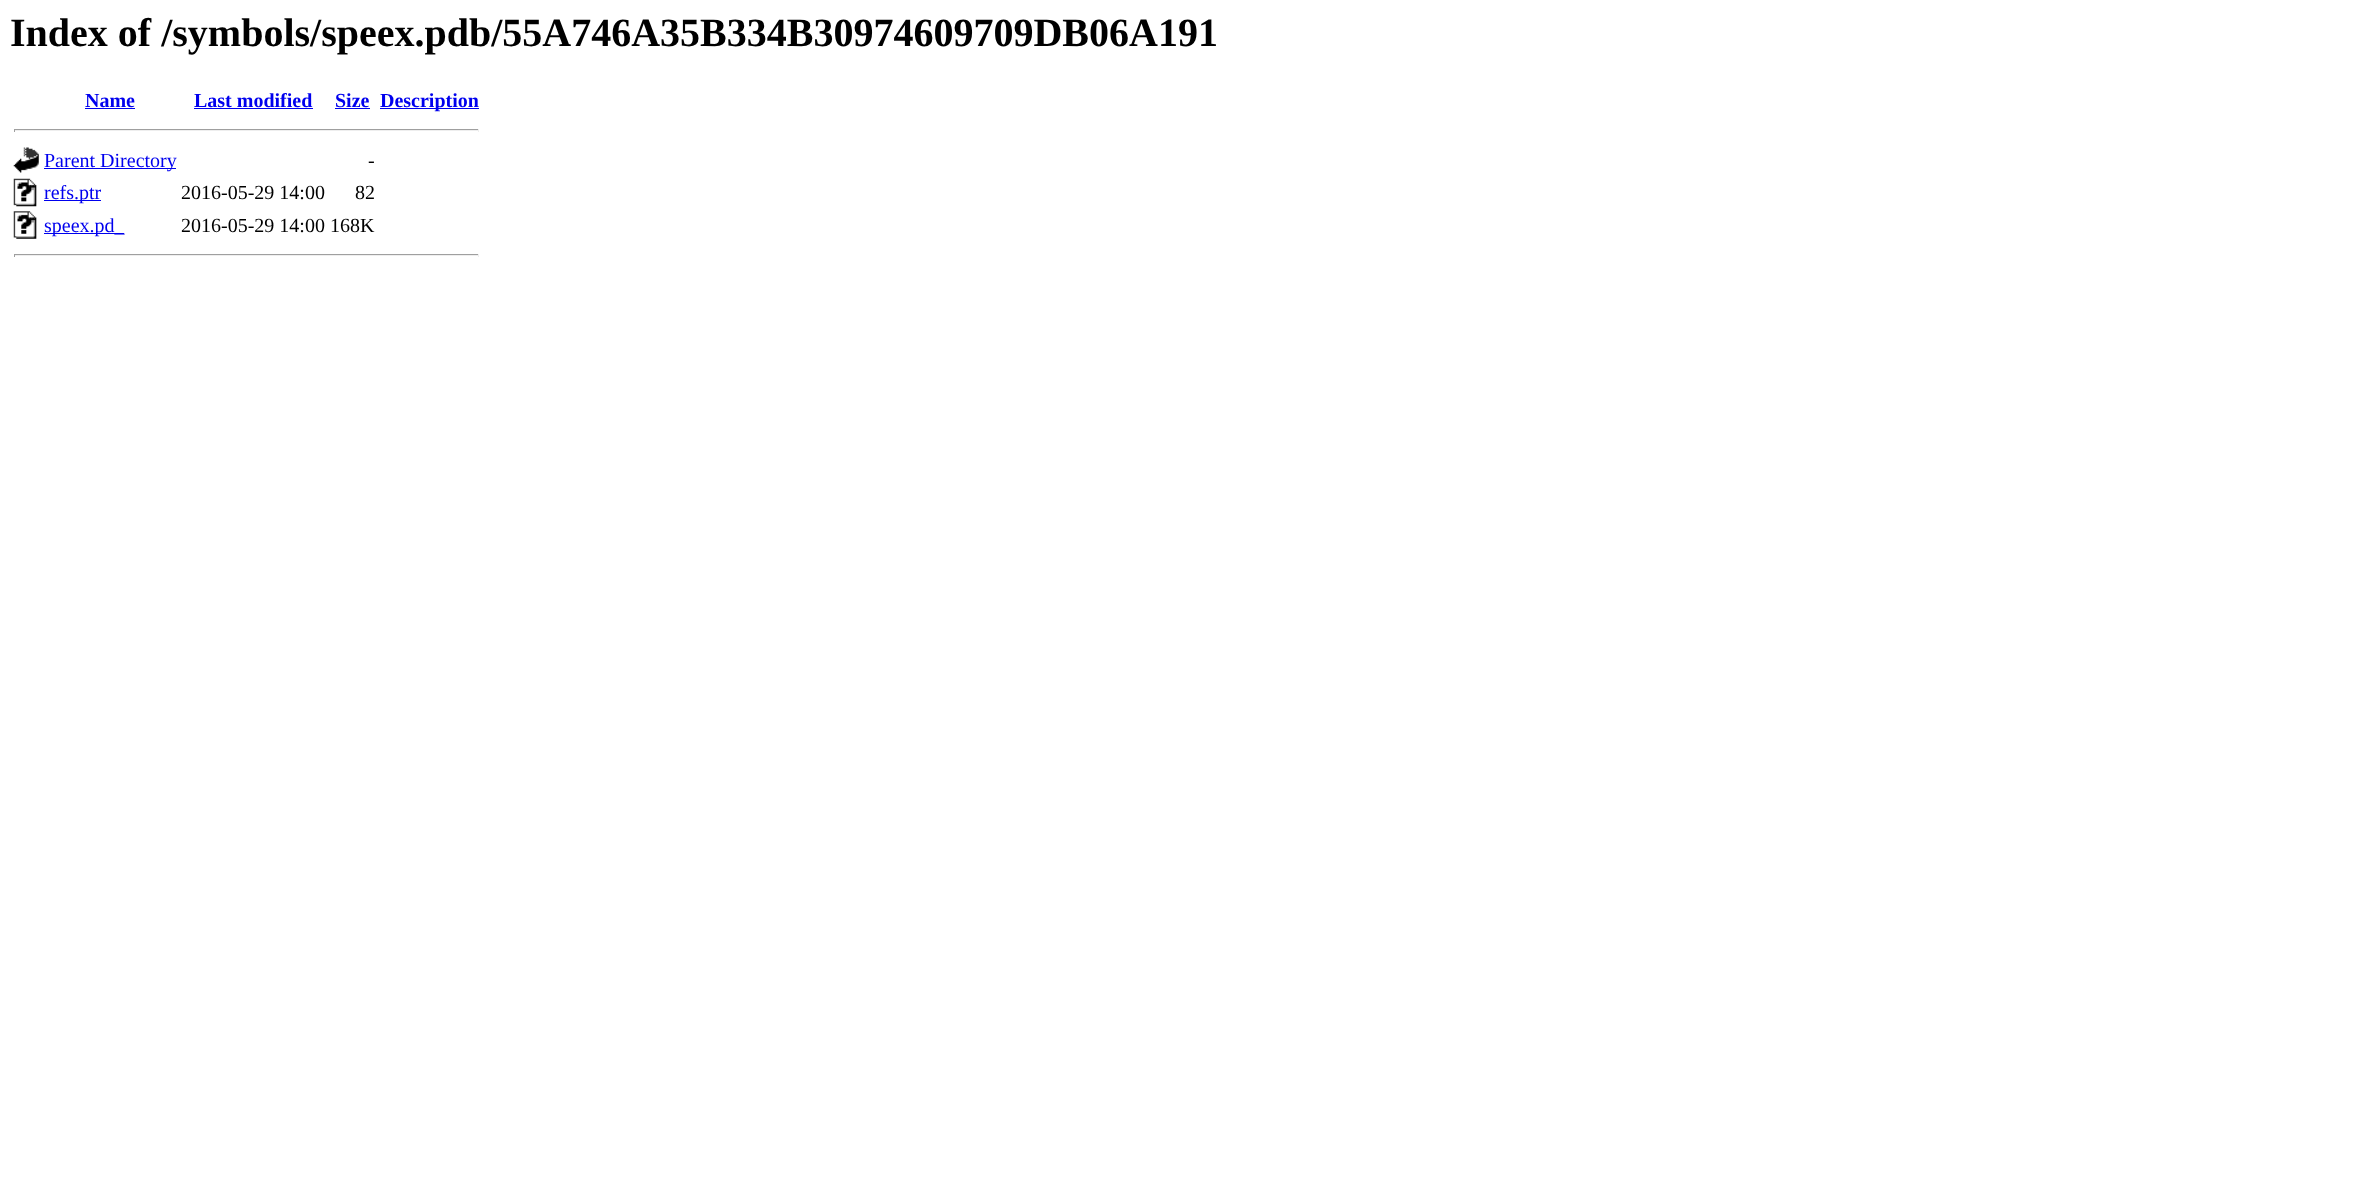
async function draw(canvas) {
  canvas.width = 2357;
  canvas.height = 1185;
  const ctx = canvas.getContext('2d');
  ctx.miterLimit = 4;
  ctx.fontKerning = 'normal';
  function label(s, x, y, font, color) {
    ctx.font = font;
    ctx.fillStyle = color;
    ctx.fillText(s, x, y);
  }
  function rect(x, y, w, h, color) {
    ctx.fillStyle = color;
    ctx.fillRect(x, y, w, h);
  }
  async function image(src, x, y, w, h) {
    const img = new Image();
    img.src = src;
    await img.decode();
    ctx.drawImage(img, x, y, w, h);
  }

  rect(0, 0, 2357, 1185, '#fff');
  label('Index of /symbols/speex.pdb/55A746A35B334B30974609709DB06A191', 10, 46, 'bold 40px Liberation Serif', '#000');
  label('Name', 85, 107, 'bold 20px Liberation Serif', '#00e');
  rect(85, 108, 50, 1, '#00e');
  label('Last modified', 194, 107, 'bold 20px Liberation Serif', '#00e');
  rect(194, 108, 119, 1, '#00e');
  label('Size', 335, 107, 'bold 20px Liberation Serif', '#00e');
  rect(335, 108, 35, 1, '#00e');
  rect(380, 108, 99, 1, '#00e');
  label('Description', 380, 107, 'bold 20px Liberation Serif', '#00e');
  rect(14, 129, 465, 1, '#9f9f9f');
  rect(478, 129, 1, 3, '#eee');
  rect(14, 130, 465, 1, '#eee');
  rect(14, 129, 1, 3, '#9f9f9f');
  await image('assets/img1.png', 13, 147, 26, 26);
  rect(44, 168, 132, 1, '#00e');
  label('Parent Directory', 44, 167, '20px Liberation Serif', '#00e');
  label('-', 368, 167, '20px Liberation Serif', '#000');
  await image('assets/img2.png', 13, 178, 24, 29);
  rect(44, 200, 57, 1, '#00e');
  label('refs.ptr', 44, 199, '20px Liberation Serif', '#00e');
  label('2016-05-29 14:00', 181, 199, '20px Liberation Serif', '#000');
  label('82', 355, 199, '20px Liberation Serif', '#000');
  await image('assets/img3.png', 13, 211, 24, 28);
  rect(44, 233, 80, 1, '#00e');
  label('speex.pd_', 44, 232, '20px Liberation Serif', '#00e');
  label('2016-05-29 14:00 168K', 181, 232, '20px Liberation Serif', '#000');
  rect(14, 254, 465, 1, '#9f9f9f');
  rect(478, 254, 1, 3, '#eee');
  rect(14, 255, 465, 1, '#eee');
  rect(14, 254, 1, 3, '#9f9f9f');
}

draw(document.querySelector('canvas'));
